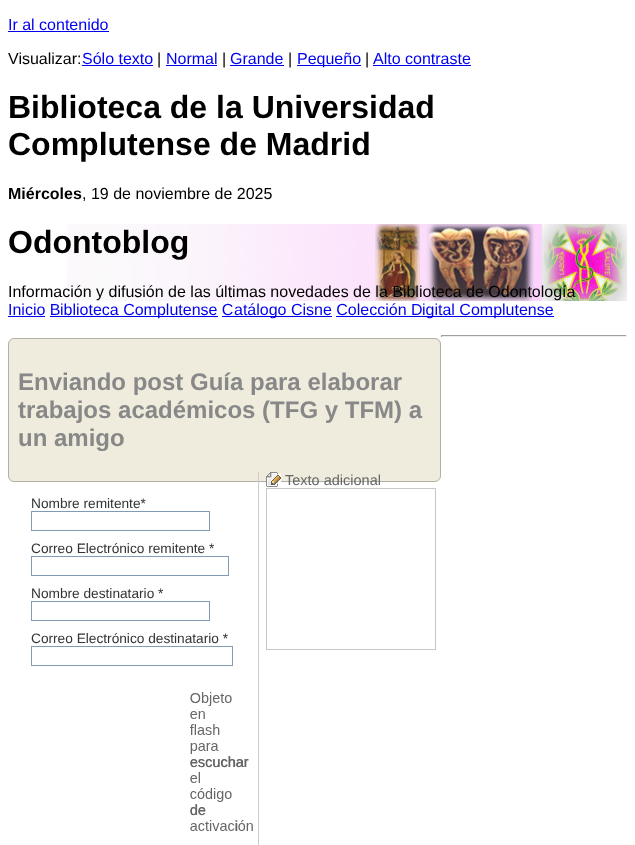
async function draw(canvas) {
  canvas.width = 635;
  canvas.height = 845;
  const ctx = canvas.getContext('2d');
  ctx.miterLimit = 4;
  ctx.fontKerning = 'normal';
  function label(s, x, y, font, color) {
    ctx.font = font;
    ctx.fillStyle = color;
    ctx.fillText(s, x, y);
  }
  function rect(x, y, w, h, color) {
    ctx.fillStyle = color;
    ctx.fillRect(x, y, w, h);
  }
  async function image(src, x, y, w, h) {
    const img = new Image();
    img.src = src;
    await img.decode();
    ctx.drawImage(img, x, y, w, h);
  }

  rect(0, 0, 635, 845, '#fff');
  label('Ir al contenido', 8, 30, '16px Liberation Sans', '#00e');
  rect(8, 31, 101, 1, '#00e');
  label('Visualizar:', 8, 64, '16px Liberation Sans', '#000');
  label('Sólo texto', 82, 64, '16px Liberation Sans', '#00e');
  rect(82, 65, 71, 1, '#00e');
  label('|', 157, 64, '16px Liberation Sans', '#000');
  label('Normal', 166, 64, '16px Liberation Sans', '#00e');
  rect(166, 65, 51, 1, '#00e');
  label('|', 222, 64, '16px Liberation Sans', '#000');
  label('Grande', 230, 64, '16px Liberation Sans', '#00e');
  rect(230, 65, 54, 1, '#00e');
  label('|', 288, 64, '16px Liberation Sans', '#000');
  rect(297, 65, 64, 1, '#00e');
  label('Pequeño', 297, 64, '16px Liberation Sans', '#00e');
  label('|', 365, 64, '16px Liberation Sans', '#000');
  label('Alto contraste', 373, 64, '16px Liberation Sans', '#00e');
  rect(373, 65, 98, 1, '#00e');
  label('Biblioteca de la Universidad', 8, 118, 'bold 32px Liberation Sans', '#000');
  label('Complutense de Madrid', 8, 155, 'bold 32px Liberation Sans', '#000');
  label('Miércoles', 8, 199, 'bold 16px Liberation Sans', '#000');
  label(', 19 de noviembre de 2025', 82, 199, '16px Liberation Sans', '#000');
  await image('assets/img1.png', 67, 224, 560, 77);
  label('Odontoblog', 8, 253, 'bold 32px Liberation Sans', '#000');
  label('Información y difusión de las últimas novedades de la Biblioteca de Odontología', 8, 297, '16px Liberation Sans', '#000');
  label('Inicio B', 8, 315, '16px Liberation Sans', '#00e');
  rect(8, 316, 37, 1, '#00e');
  rect(50, 316, 168, 1, '#00e');
  label('iblioteca Complutense C', 60, 315, '16px Liberation Sans', '#00e');
  rect(222, 316, 110, 1, '#00e');
  label('atálogo Cisne Colección D', 234, 315, '16px Liberation Sans', '#00e');
  rect(336, 316, 218, 1, '#00e');
  label('igital Complutense', 422, 315, '16px Liberation Sans', '#00e');
  rect(441, 335, 186, 1, '#9f9f9f');
  rect(626, 335, 1, 2, '#eee');
  rect(441, 336, 186, 1, '#eee');
  rect(441, 335, 1, 2, '#9f9f9f');
  ctx.fillStyle = '#efecdd';
  ctx.beginPath();
  ctx.roundRect(8.5, 338.5, 432, 143, 5.5);
  ctx.fill();
  ctx.strokeStyle = '#b3b1a6';
  ctx.stroke();
  label('Enviando post Guía para elaborar', 18, 390, 'bold 24px Liberation Sans', '#888');
  label('trabajos académicos (TFG y TFM) a', 18, 418, 'bold 24px Liberation Sans', '#888');
  label('un amigo', 18, 446, 'bold 24px Liberation Sans', '#888');
  await image('assets/img2.png', 266, 472, 15, 15);
  label('Texto adicional', 285, 485, '14.5px Liberation Sans', '#666');
  ctx.strokeStyle = '#c7c7c7';
  ctx.strokeRect(266.5, 488.5, 169, 161);
  rect(258, 472, 1, 373, '#ccc');
  label('Nombre remitente*', 31, 508, '13.7px Liberation Sans', '#333');
  ctx.strokeStyle = '#829bb4';
  ctx.strokeRect(31.5, 511.5, 178, 19);
  label('Correo Electrónico remitente *', 31, 553, '13.7px Liberation Sans', '#333');
  ctx.strokeRect(31.5, 556.5, 197, 19);
  label('Nombre destinatario *', 31, 598, '13.7px Liberation Sans', '#333');
  ctx.strokeRect(31.5, 601.5, 178, 19);
  label('Correo Electrónico destinatario *', 31, 643, '13.7px Liberation Sans', '#333');
  ctx.strokeRect(31.5, 646.5, 201, 19);
  await image('assets/img3.png', 189, 692, 64, 139);
  label('escuchar', 190, 767, '14.5px Liberation Sans', '#666');
  label('de', 190, 815, '14.5px Liberation Sans', '#666');
  label('i', 235, 831, '14.5px Liberation Sans', '#666');
}

draw(document.querySelector('canvas'));
